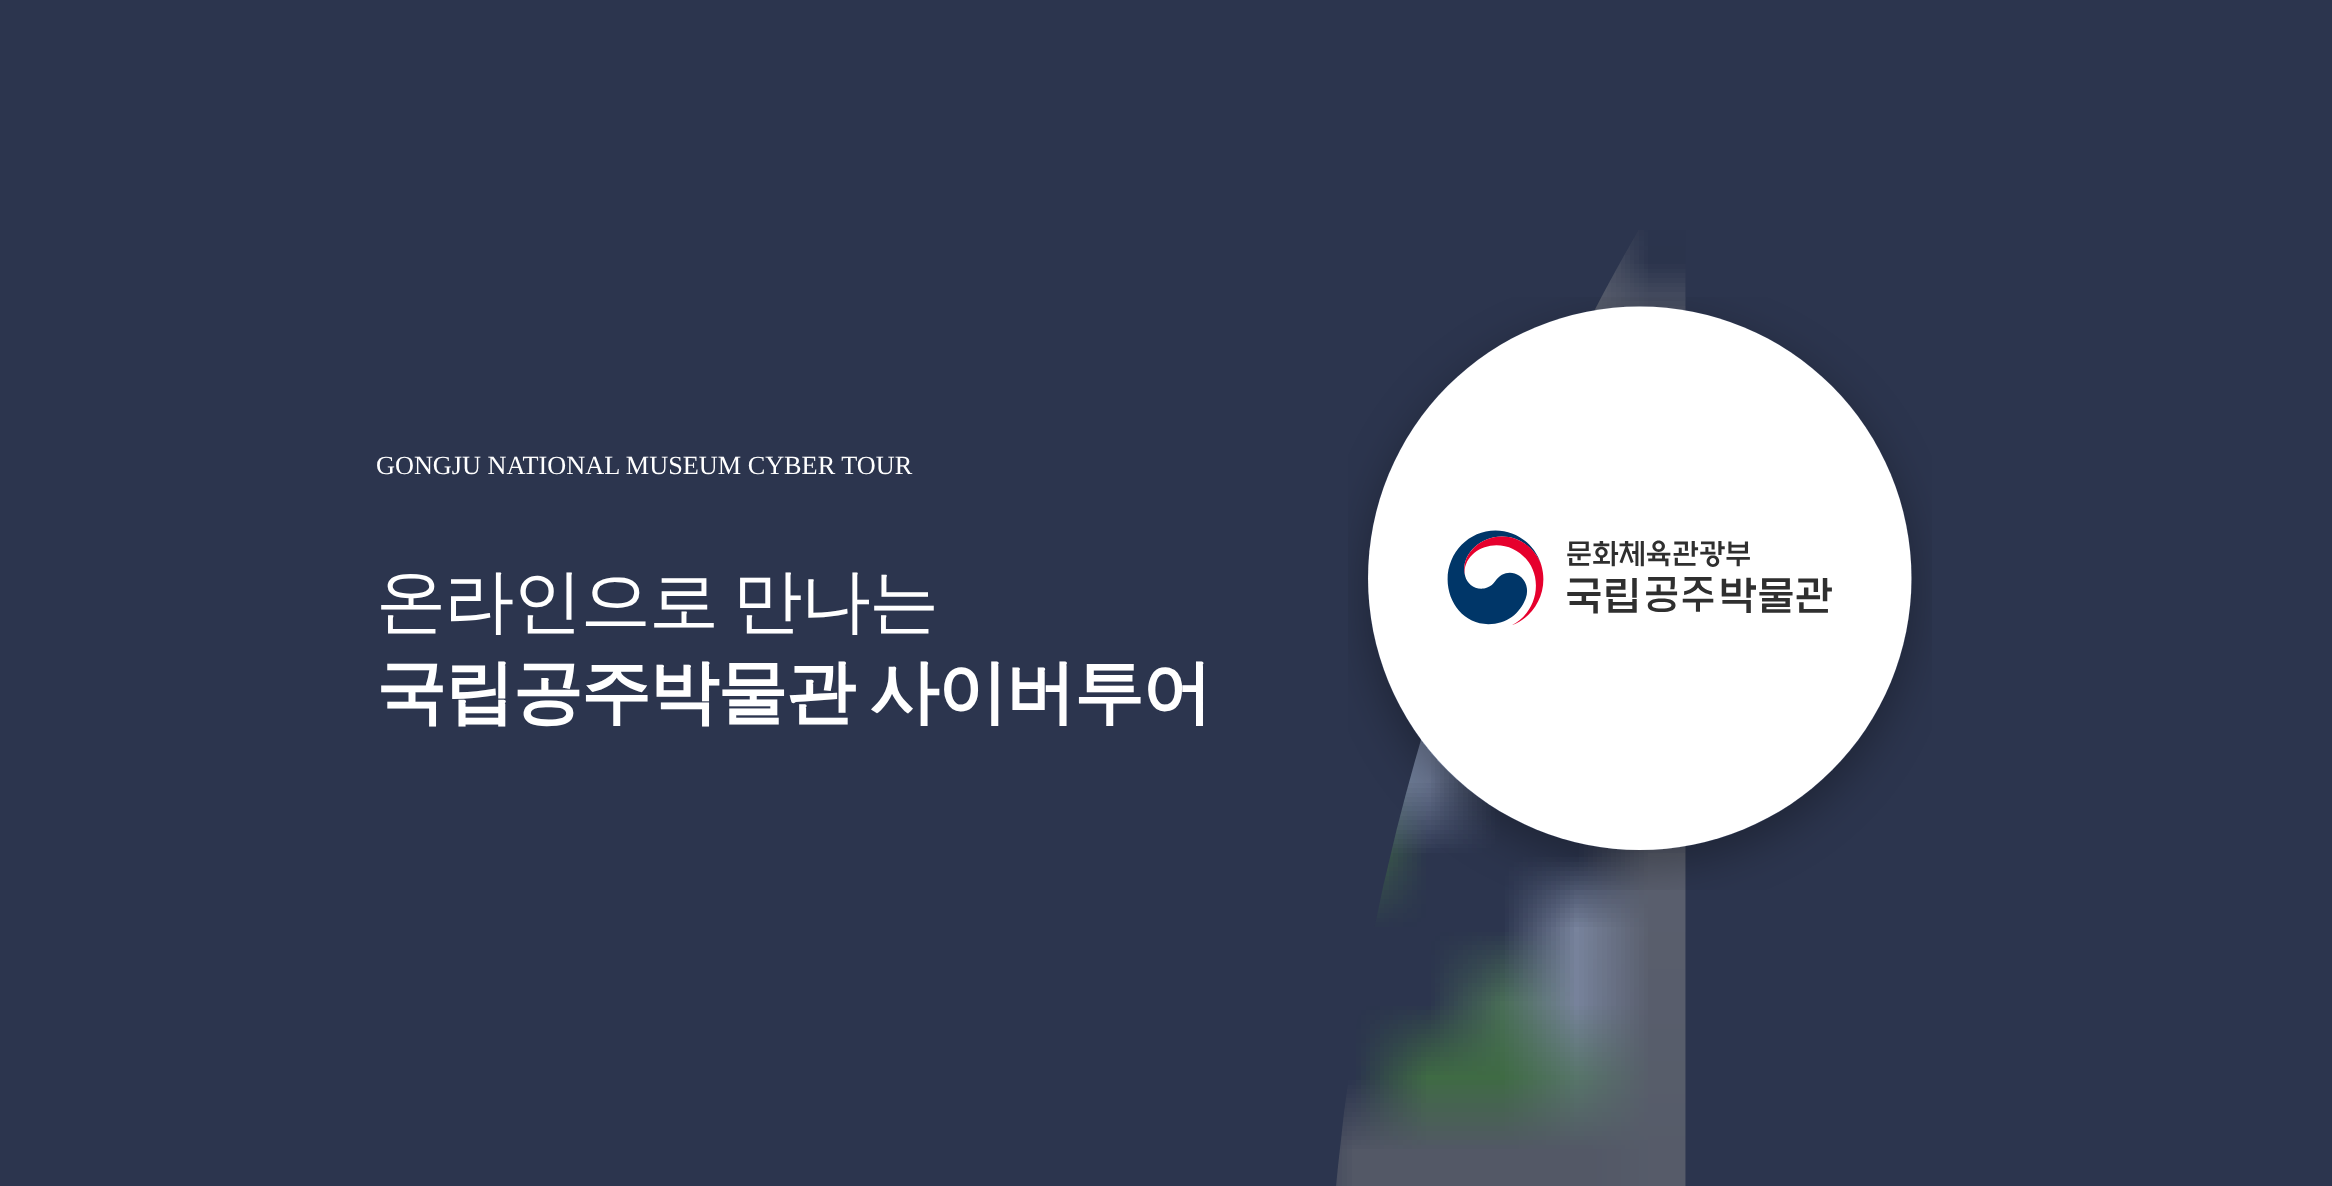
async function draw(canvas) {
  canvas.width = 2332;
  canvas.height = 1186;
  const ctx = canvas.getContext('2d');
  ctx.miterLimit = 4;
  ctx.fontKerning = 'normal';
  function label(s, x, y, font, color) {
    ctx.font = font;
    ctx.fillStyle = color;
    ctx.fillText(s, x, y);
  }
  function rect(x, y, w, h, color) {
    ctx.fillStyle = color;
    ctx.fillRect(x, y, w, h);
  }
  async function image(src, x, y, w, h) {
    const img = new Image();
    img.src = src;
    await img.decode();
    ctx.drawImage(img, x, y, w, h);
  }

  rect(0, 0, 2332, 1186, '#2c354e');
  label('GONGJU NATIONAL MUSEUM CYBER TOUR', 376, 474, '26.25px Liberation Serif', '#fff');
  ctx.letterSpacing = '-1.75px';
  ctx.wordSpacing = '-4px';
  label('온라인으로 만나는', 376, 625, '500 70px WenQuanYi Zen Hei', '#fff');
  label('국립공주박물관 사이버투어', 376, 716, 'bold 70px WenQuanYi Zen Hei', '#fff');
  await image('assets/img2.png', 1336, 230, 350, 956);
  await image('assets/img1.png', 1348, 297, 584, 593);
}

draw(document.querySelector('canvas'));
